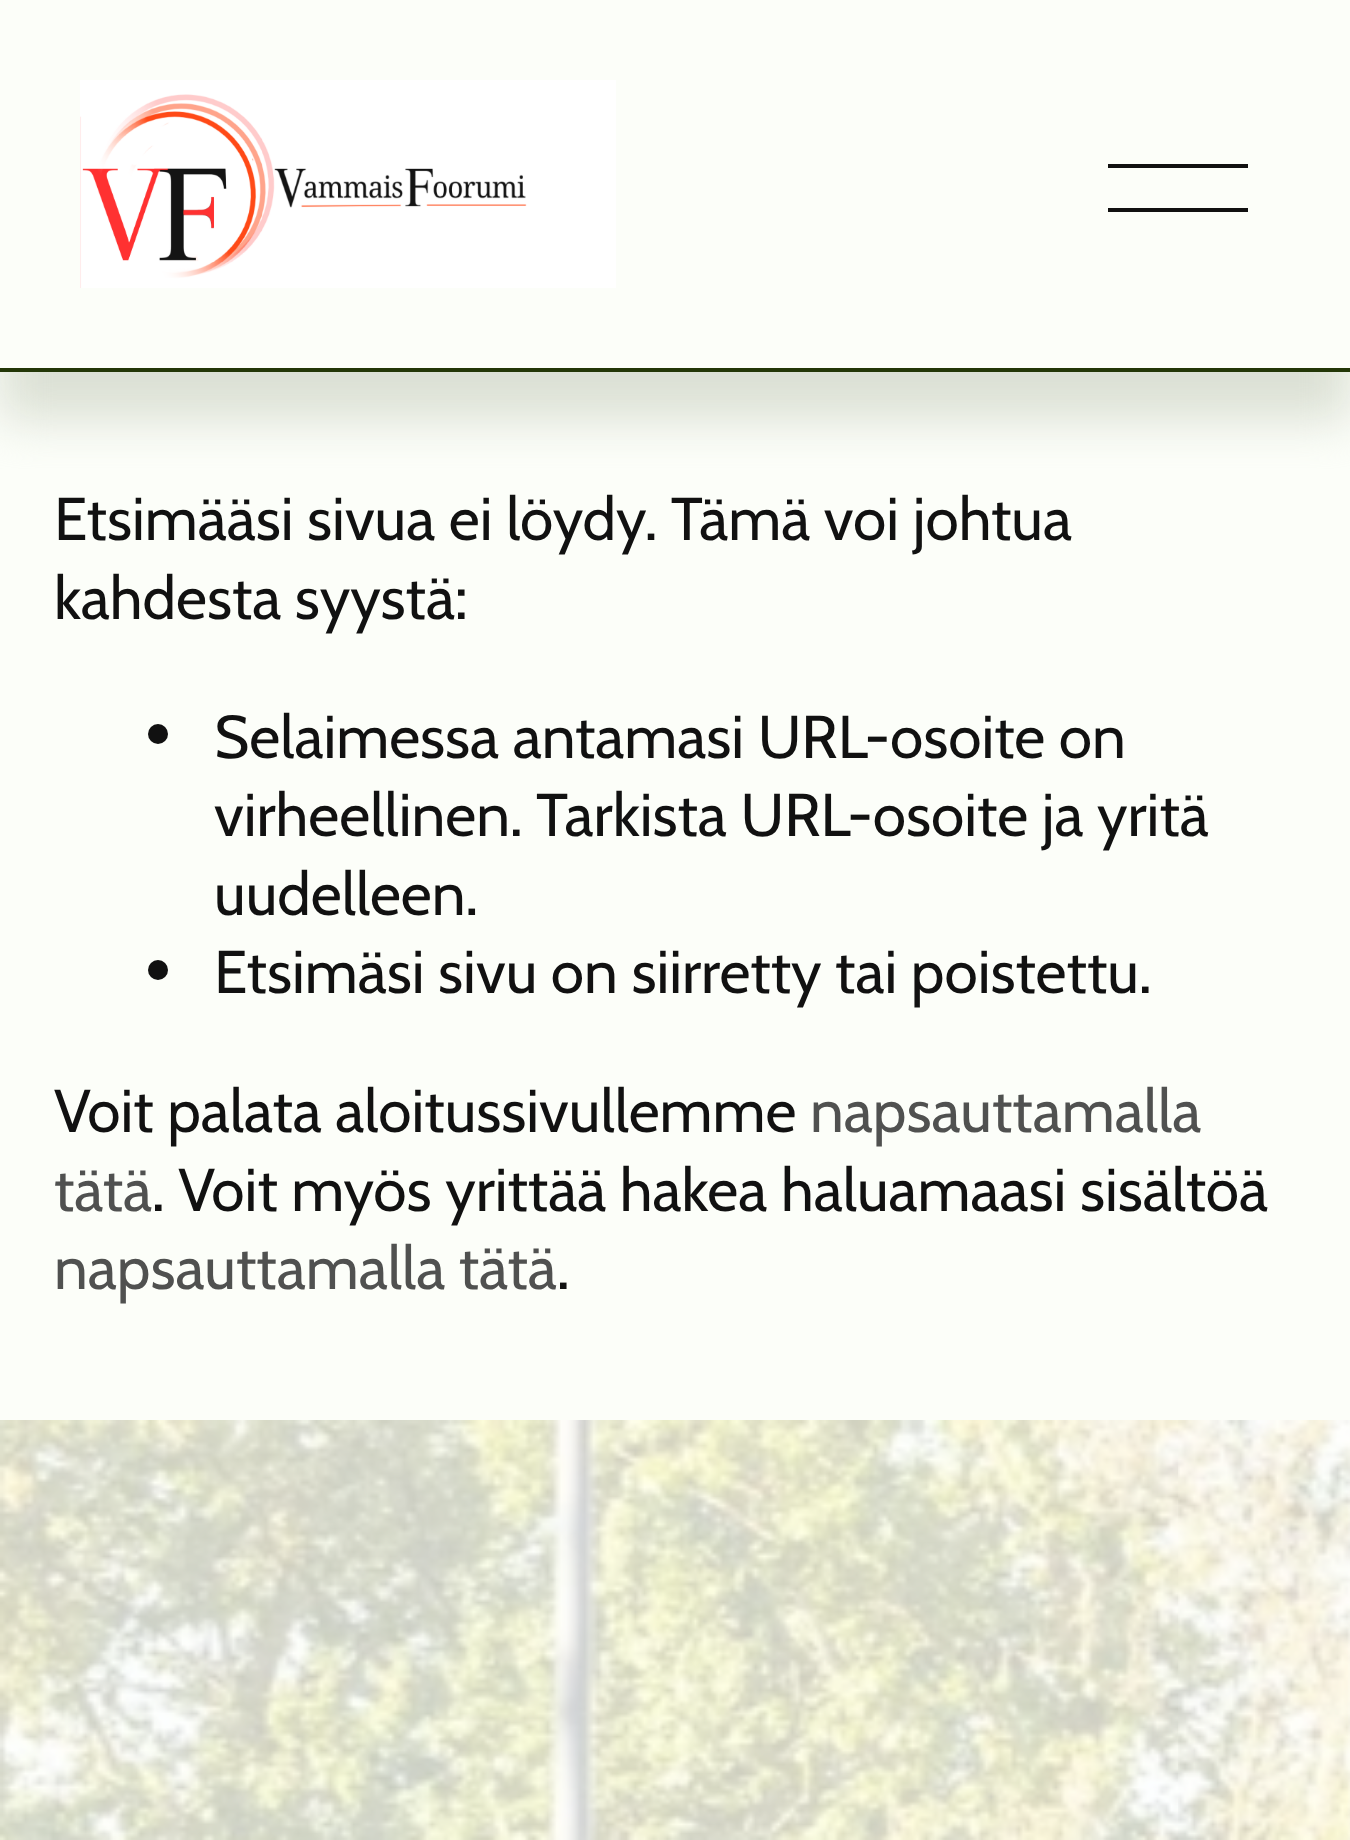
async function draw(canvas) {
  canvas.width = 1350;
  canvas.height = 1840;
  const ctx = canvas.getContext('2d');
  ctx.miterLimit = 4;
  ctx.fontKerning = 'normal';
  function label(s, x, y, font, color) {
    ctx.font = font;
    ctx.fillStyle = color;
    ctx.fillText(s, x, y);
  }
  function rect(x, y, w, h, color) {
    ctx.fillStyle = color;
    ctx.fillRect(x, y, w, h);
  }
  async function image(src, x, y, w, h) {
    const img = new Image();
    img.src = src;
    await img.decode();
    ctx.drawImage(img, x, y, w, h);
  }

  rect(0, 0, 1350, 1840, '#fcfef9');
  ctx.save();
  ctx.beginPath();
  ctx.rect(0, 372, 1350, 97);
  ctx.clip();
  ctx.fillStyle = '#dbe0d4';
  ctx.filter = 'blur(24px)';
  ctx.beginPath();
  ctx.rect(0, 48, 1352, 372);
  ctx.fill();
  ctx.filter = 'none';
  ctx.restore();
  await image('assets/img1.png', 80, 80, 536, 208);
  rect(1108, 164, 140, 4, '#111');
  rect(1108, 208, 140, 4, '#111');
  rect(0, 368, 1350, 4, '#233707');
  label('Etsimääsi sivua ei löydy. Tämä voi johtua', 54, 540, '60.4px Cabin', '#111');
  label('kahdesta syystä:', 54, 619, '60.4px Cabin', '#111');
  ctx.beginPath();
  ctx.arc(158, 734, 10, 0, 2 * Math.PI);
  ctx.fill();
  label('Selaimessa antamasi URL-osoite on', 214, 758, '60.4px Cabin', '#111');
  label('virheellinen. Tarkista URL-osoite ja yritä', 214, 836, '60.4px Cabin', '#111');
  label('uudelleen.', 214, 915, '60.4px Cabin', '#111');
  ctx.beginPath();
  ctx.arc(158, 970, 10, 0, 2 * Math.PI);
  ctx.fill();
  label('Etsimäsi sivu on siirretty tai poistettu.', 214, 993, '60.4px Cabin', '#111');
  label('Voit palata aloitussivullemme', 54, 1132, '60.4px Cabin', '#111');
  label('napsauttamalla', 810, 1132, '60.4px Cabin', '#505150');
  label('tätä', 54, 1211, '60.4px Cabin', '#505150');
  label('. Voit myös yrittää hakea', 152, 1211, '60.4px Cabin', '#111');
  label('haluamaasi sisältöä', 781, 1211, '60.4px Cabin', '#111');
  label('napsauttamalla tätä', 54, 1289, '60.4px Cabin', '#505150');
  label('.', 557, 1289, '60.4px Cabin', '#111');
  await image('assets/img2.png', 0, 1420, 1350, 420);
}

draw(document.querySelector('canvas'));
